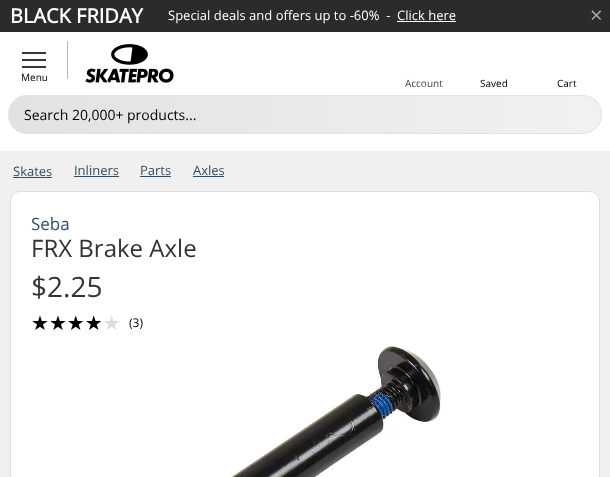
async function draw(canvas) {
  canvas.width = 610;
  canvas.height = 477;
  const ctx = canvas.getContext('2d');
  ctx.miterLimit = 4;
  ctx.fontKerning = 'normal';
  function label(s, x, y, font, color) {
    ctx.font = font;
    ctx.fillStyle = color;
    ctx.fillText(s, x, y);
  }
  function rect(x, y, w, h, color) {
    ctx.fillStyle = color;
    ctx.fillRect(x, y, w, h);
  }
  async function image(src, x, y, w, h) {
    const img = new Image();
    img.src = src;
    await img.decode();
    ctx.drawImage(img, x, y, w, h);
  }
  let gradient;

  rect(0, 0, 610, 477, '#2b2b2b');
  label('BLACK FRIDAY', 10, 23, 'bold 20px Open Sans', '#fff');
  label('Special deals and offers up to -60%  -', 168, 20, '13px Open Sans', '#fff');
  label('Click here', 397, 20, '13px Open Sans', '#fff');
  rect(397, 21, 59, 1, '#fff');
  label('×', 590, 23, '22px Open Sans', '#aaa');
  rect(0, 32, 610, 119, '#fff');
  rect(67, 41, 1, 38, '#c1b5b5');
  rect(22, 52, 24, 2, '#363636');
  rect(22, 59, 24, 2, '#363636');
  rect(22, 66, 24, 2, '#363636');
  label('Menu', 21, 81, '10px Open Sans', '#000');
  await image('assets/img1.png', 85, 44, 89, 39);
  label('Account', 405, 87, '10px Open Sans', '#444343');
  label('Saved', 480, 87, '10px Open Sans', '#000');
  label('Cart', 557, 87, '10px Open Sans', '#000');
  ctx.save();
  ctx.beginPath();
  ctx.roundRect(8, 95, 594, 39, 19.5);
  ctx.clip();
  gradient = ctx.createLinearGradient(9, 115, 601, 114);
  gradient.addColorStop(0, '#e2e2e2');
  gradient.addColorStop(1, '#f1f1f1');
  ctx.fillStyle = gradient;
  ctx.fillRect(9, 95, 592, 39);
  ctx.restore();
  ctx.beginPath();
  ctx.roundRect(8.5, 95.5, 593, 38, 19);
  ctx.strokeStyle = '#e2e2e2';
  ctx.stroke();
  label('Search 20,000+ products...', 24, 120, '14px Open Sans', '#000');
  rect(0, 151, 610, 326, '#f0f0f0');
  label('Skates', 13, 176, '13px Open Sans', '#344d66');
  rect(13, 177, 39, 1, '#344d66');
  label('Inliners', 74, 175, '13px Open Sans', '#344d66');
  rect(74, 176, 45, 1, '#344d66');
  label('Parts', 140, 175, '13px Open Sans', '#344d66');
  rect(140, 176, 31, 1, '#344d66');
  label('Axles', 193, 175, '13px Open Sans', '#344d66');
  rect(193, 176, 31, 1, '#344d66');
  ctx.fillStyle = '#fff';
  ctx.beginPath();
  ctx.roundRect(10.5, 191.5, 589, 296, 9.5);
  ctx.fill();
  ctx.strokeStyle = '#dfdede';
  ctx.stroke();
  label('Seba', 31, 230, '17px Open Sans', '#344d66');
  label('FRX Brake Axle', 31, 257, '24px Open Sans', '#333');
  label('$2.25', 31, 297, '28px Open Sans', '#333');
  label('★★★★★', 31, 330, '20px DejaVu Sans', '#ddd');
  label('★★★★', 31, 330, '20px DejaVu Sans', '#000');
  label('(3)', 129, 327, '12px Open Sans', '#0a0a0a');
  await image('assets/img2.png', 228, 346, 213, 131);
}

draw(document.querySelector('canvas'));
